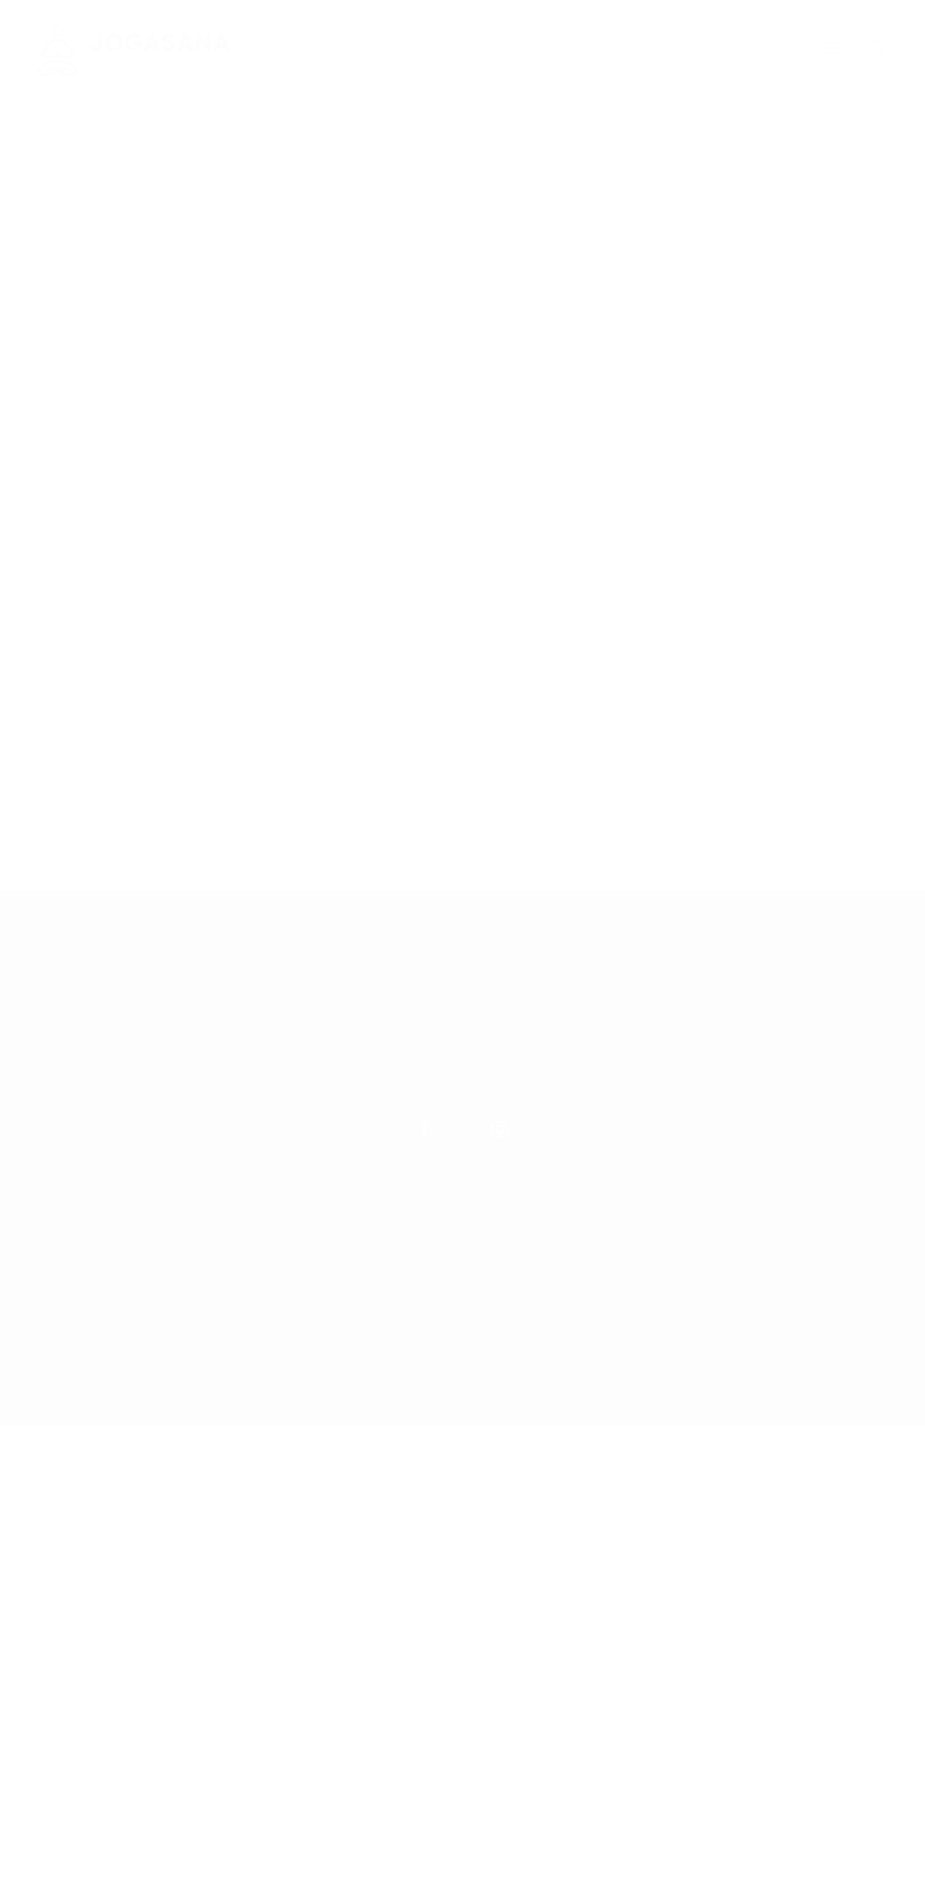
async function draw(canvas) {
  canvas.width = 925;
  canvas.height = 1885;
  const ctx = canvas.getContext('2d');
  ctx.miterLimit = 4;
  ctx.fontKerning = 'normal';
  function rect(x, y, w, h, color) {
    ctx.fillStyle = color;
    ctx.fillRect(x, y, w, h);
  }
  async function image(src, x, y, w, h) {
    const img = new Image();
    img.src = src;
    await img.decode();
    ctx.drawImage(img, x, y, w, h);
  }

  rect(0, 0, 925, 1885, '#fff');
  await image('assets/img1.png', 37, 25, 201, 52);
  await image('assets/img2.png', 820, 41, 20, 14);
  await image('assets/img3.png', 867, 39, 20, 21);
  await image('assets/img4.png', 0, 891, 925, 536);
  await image('assets/img5.png', 420, 1120, 10, 19);
  await image('assets/img6.png', 491, 1120, 18, 18);
}

draw(document.querySelector('canvas'));
